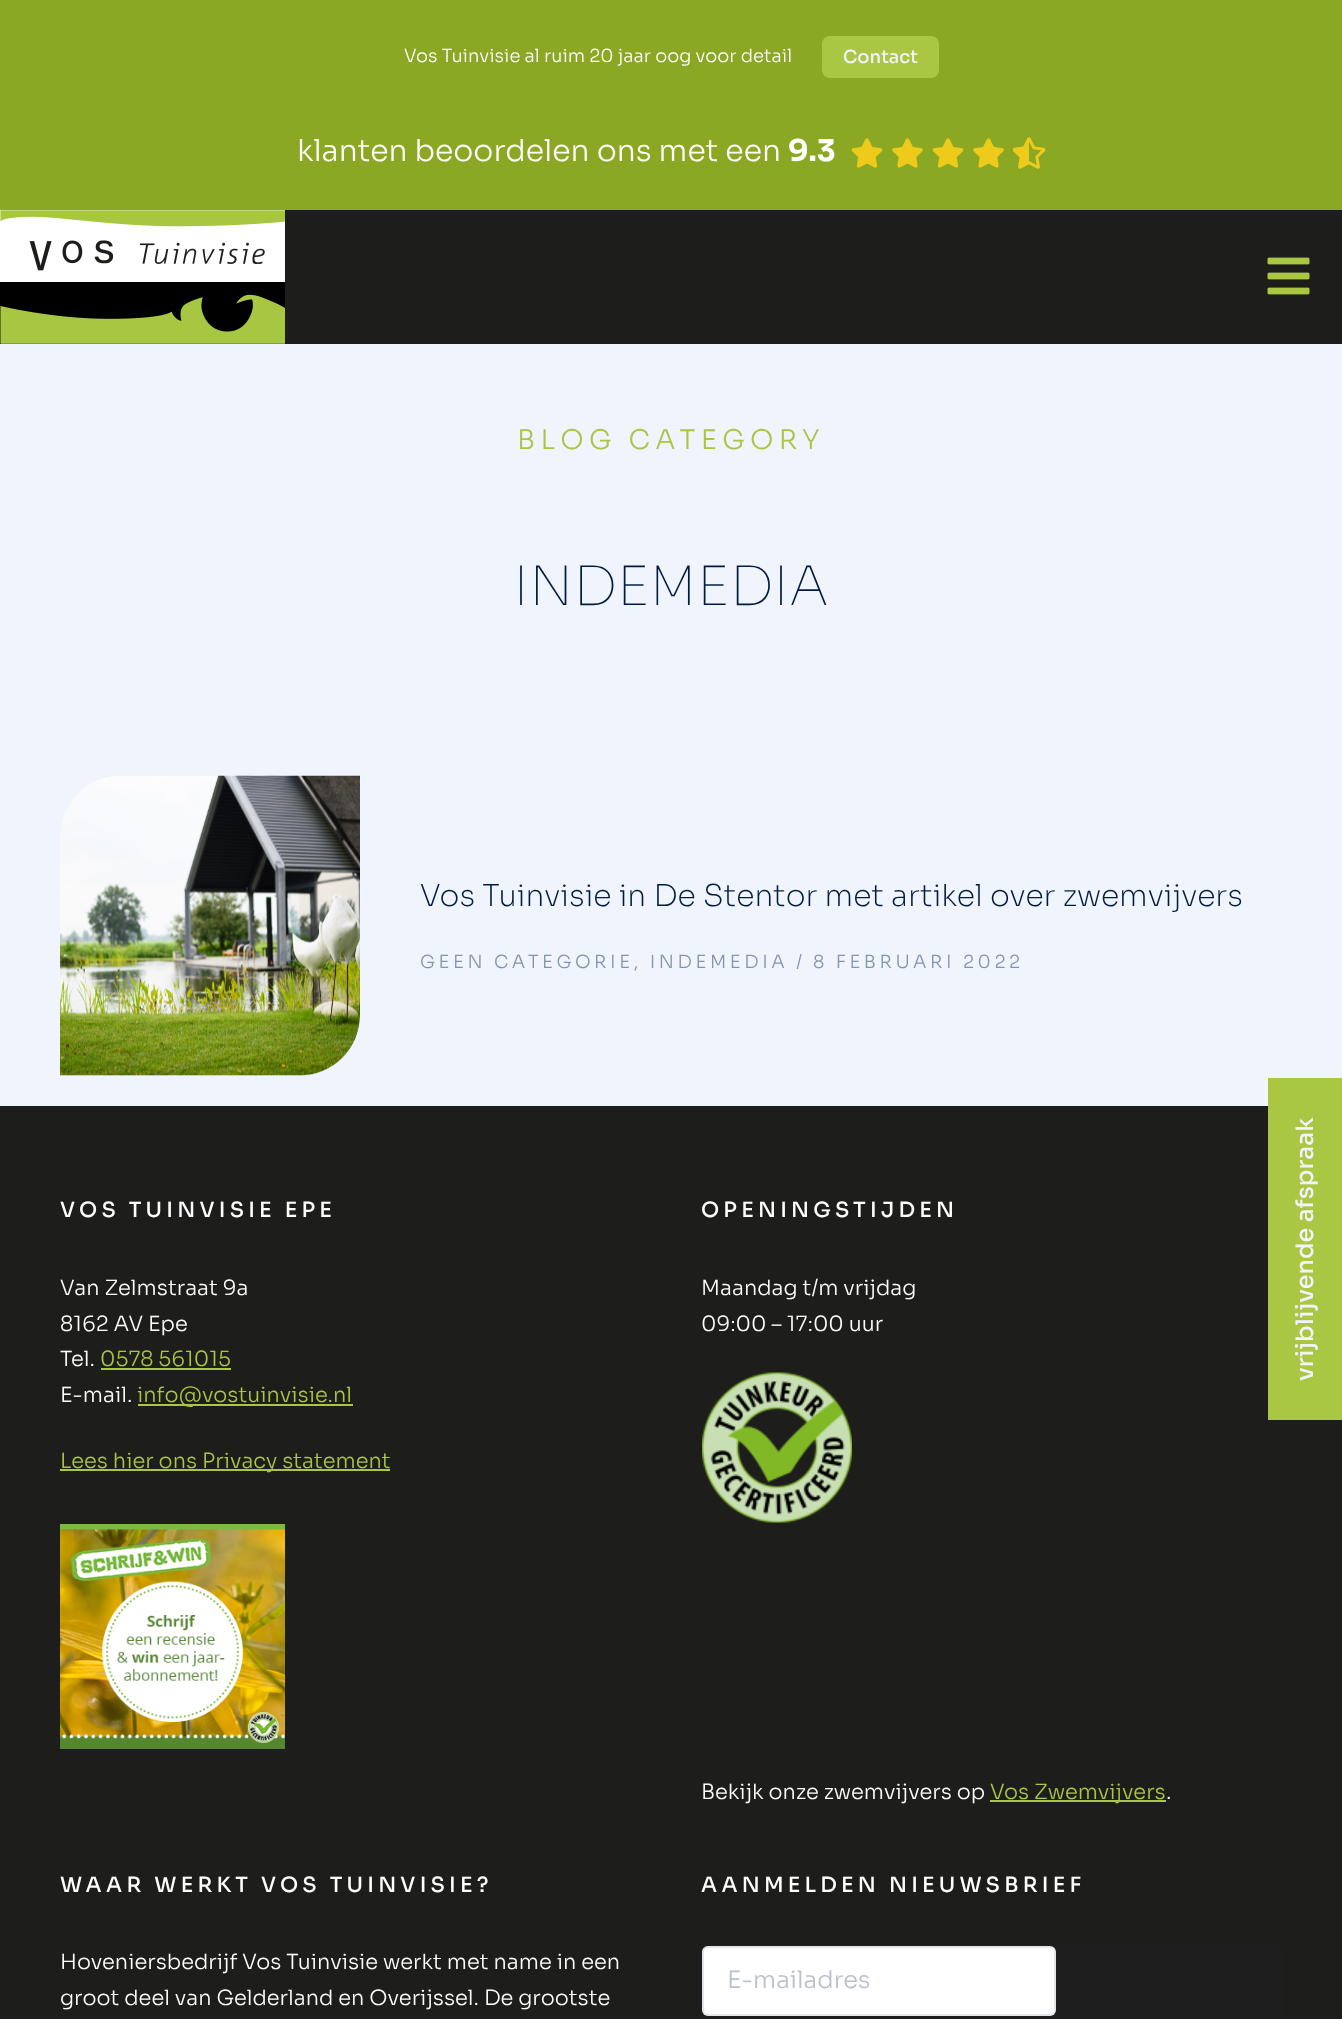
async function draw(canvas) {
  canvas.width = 1342;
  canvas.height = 2019;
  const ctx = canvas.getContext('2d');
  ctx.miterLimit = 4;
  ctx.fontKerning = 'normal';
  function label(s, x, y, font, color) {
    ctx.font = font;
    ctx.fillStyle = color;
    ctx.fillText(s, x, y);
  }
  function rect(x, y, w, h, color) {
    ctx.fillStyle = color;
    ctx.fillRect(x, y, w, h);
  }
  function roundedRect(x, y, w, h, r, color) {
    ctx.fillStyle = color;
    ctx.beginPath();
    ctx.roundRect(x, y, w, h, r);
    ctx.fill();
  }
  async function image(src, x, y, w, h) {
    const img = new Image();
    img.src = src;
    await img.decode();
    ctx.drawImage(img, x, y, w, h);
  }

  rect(0, 0, 1342, 2019, '#eff4fd');
  rect(0, 0, 1342, 210, '#8aa824');
  label('Vos Tuinvisie al ruim 20 jaar oog voor detail', 404, 62, '300 18px Sora', '#fff');
  roundedRect(822, 36, 117, 42, 8, '#a9c743');
  label('Contact', 843, 63, '500 18px Sora', '#eff4fd');
  label('klanten beoordelen ons met een', 297, 161, '300 30px Sora', '#fff');
  label('9.3', 788, 161, 'bold 30px Sora', '#fff');
  await image('assets/img1.png', 851, 138, 32, 30);
  await image('assets/img2.png', 892, 138, 31, 30);
  await image('assets/img1.png', 932, 138, 32, 30);
  await image('assets/img2.png', 973, 138, 31, 30);
  await image('assets/img3.png', 1013, 137, 33, 32);
  rect(285, 210, 1057, 134, '#1d1d1b');
  await image('assets/img4.png', 0, 210, 285, 134);
  await image('assets/img5.png', 1267, 257, 43, 38);
  rect(0, 1108, 1342, 911, '#1d1d1b');
  rect(1268, 1078, 74, 342, '#a9c743');
  ctx.font = '500 24px Sora';
  ctx.fillStyle = '#eff4fd';
  ctx.save();
  ctx.translate(1313, 1381);
  ctx.rotate(-90 * Math.PI / 180);
  ctx.fillText('vrijblijvende afspraak', 0, 0);
  ctx.restore();
  ctx.letterSpacing = '5.4px';
  label('BLOG CATEGORY', 517, 449, '300 27px Sora', '#a9c743');
  ctx.letterSpacing = '0px';
  label('INDEMEDIA', 513, 605, '100 54px Sora', '#001a40');
  ctx.fillStyle = '#e8edf5';
  ctx.beginPath();
  ctx.roundRect(60, 776, 300, 300, [60, 0, 60, 0]);
  ctx.fill();
  await image('assets/img6.png', 60, 775, 300, 301);
  label('Vos Tuinvisie in De Stentor met artikel over zwemvijvers', 420, 906, '200 30px Sora', '#001a40');
  ctx.letterSpacing = '3.6px';
  label('GEEN CATEGORIE, INDEMEDIA /', 420, 968, '300 18px Sora', '#8694aa');
  label('8 FEBRUARI 2022', 813, 968, '300 18px Sora', '#8694aa');
  rect(0, 1106, 1268, 2, '#1a1d1f');
  ctx.letterSpacing = '4.2px';
  label('VOS TUINVISIE EPE', 60, 1217, '500 21px Sora', '#fff');
  ctx.letterSpacing = '0px';
  label('Van Zelmstraat 9a', 60, 1295, '300 21px Sora', '#fff');
  label('8162 AV Epe', 60, 1331, '300 21px Sora', '#fff');
  label('Tel.', 60, 1366, '300 21px Sora', '#fff');
  label('0578 561015', 100, 1366, '300 21px Sora', '#a9c743');
  rect(101, 1368, 130, 2, '#a9c743');
  label('E-mail.', 60, 1402, '300 21px Sora', '#fff');
  rect(138, 1404, 215, 2, '#a9c743');
  label('info@vostuinvisie.nl', 137, 1402, '300 21px Sora', '#a9c743');
  rect(60, 1469, 330, 2, '#a9c743');
  label('Lees hier ons Privacy statement', 60, 1468, '300 21px Sora', '#a9c743');
  await image('assets/img7.png', 60, 1524, 225, 225);
  ctx.letterSpacing = '4.2px';
  label('OPENINGSTIJDEN', 701, 1217, '500 21px Sora', '#fff');
  ctx.letterSpacing = '0px';
  label('Maandag t/m vrijdag', 701, 1295, '300 21px Sora', '#fff');
  label('09:00 – 17:00 uur', 701, 1331, '300 21px Sora', '#fff');
  await image('assets/img8.png', 702, 1372, 150, 151);
  label('Bekijk onze zwemvijvers op', 701, 1799, '300 21px Sora', '#fff');
  rect(990, 1800, 176, 2, '#a9c743');
  label('Vos Zwemvijvers', 990, 1799, '300 21px Sora', '#a9c743');
  label('.', 1166, 1799, '300 21px Sora', '#fff');
  ctx.letterSpacing = '4.2px';
  label('WAAR WERKT VOS TUINVISIE?', 60, 1892, '500 21px Sora', '#fff');
  ctx.letterSpacing = '0px';
  label('Hoveniersbedrijf Vos Tuinvisie werkt met name in een', 60, 1969, '300 21px Sora', '#fff');
  label('groot deel van Gelderland en Overijssel. De grootste', 60, 2005, '300 21px Sora', '#fff');
  ctx.letterSpacing = '4.2px';
  label('AANMELDEN NIEUWSBRIEF', 701, 1892, '500 21px Sora', '#fff');
  rect(702, 1946, 581, 73, '#1e1e1e');
  roundedRect(702, 1946, 354, 70, 6, '#fff');
  ctx.beginPath();
  ctx.roundRect(703, 1947, 352, 68, 5);
  ctx.strokeStyle = '#001a401c';
  ctx.lineWidth = 2;
  ctx.stroke();
  ctx.letterSpacing = '0px';
  label('E-mailadres', 727, 1988, '300 24px Sora', '#b9c0cb');
}

draw(document.querySelector('canvas'));
